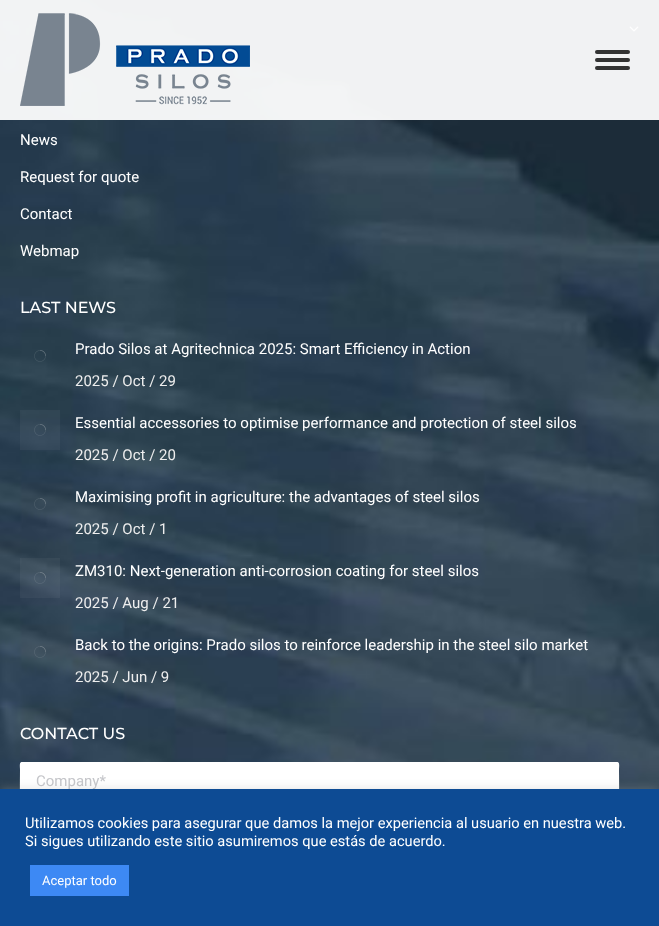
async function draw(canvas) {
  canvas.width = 659;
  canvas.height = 926;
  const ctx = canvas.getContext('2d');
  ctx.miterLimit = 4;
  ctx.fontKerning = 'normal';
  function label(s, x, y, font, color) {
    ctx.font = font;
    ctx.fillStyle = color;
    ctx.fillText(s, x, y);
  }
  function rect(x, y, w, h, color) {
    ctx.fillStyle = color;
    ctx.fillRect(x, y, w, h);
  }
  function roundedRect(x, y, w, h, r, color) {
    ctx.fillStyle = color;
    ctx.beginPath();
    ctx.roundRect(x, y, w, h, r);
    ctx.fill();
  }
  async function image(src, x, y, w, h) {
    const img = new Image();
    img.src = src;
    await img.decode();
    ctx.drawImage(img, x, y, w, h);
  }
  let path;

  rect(0, 0, 659, 926, '#fff');
  await image('assets/img2.png', 0, 0, 659, 789);
  await image('assets/img3.png', 629, 26, 10, 6);
  rect(0, 0, 659, 120, '#fffffff0');
  await image('assets/img1.png', 20, 13, 230, 93);
  roundedRect(595, 50, 35, 4, 2, '#333');
  roundedRect(595, 58, 35, 4, 2, '#333');
  roundedRect(595, 66, 35, 4, 2, '#333');
  label('News', 20, 145, '15px Roboto', '#fff');
  label('Request for quote', 20, 182, '15px Roboto', '#fff');
  label('Contact', 20, 219, '15px Roboto', '#fff');
  label('Webmap', 20, 256, '15px Roboto', '#fff');
  label('LAST NEWS', 20, 313, '500 16px Montserrat', '#fff');
  await image('assets/img4.png', 34, 350, 12, 12);
  label('Prado Silos at Agritechnica 2025: Smart Efficiency in Action', 75, 354, '15px Roboto', '#fff');
  label('2025 / Oct / 29', 75, 386, '15px Roboto', '#eee');
  rect(20, 410, 40, 40, '#eeeeee0d');
  await image('assets/img5.png', 34, 424, 12, 12);
  label('Essential accessories to optimise performance and protection of steel silos', 75, 428, '15px Roboto', '#fff');
  label('2025 / Oct / 20', 75, 460, '15px Roboto', '#eee');
  await image('assets/img6.png', 34, 498, 12, 12);
  label('Maximising profit in agriculture: the advantages of steel silos', 75, 502, '15px Roboto', '#fff');
  label('2025 / Oct / 1', 75, 534, '15px Roboto', '#eee');
  rect(20, 558, 40, 40, '#eeeeee0d');
  await image('assets/img7.png', 34, 572, 12, 12);
  label('ZM310: Next-generation anti-corrosion coating for steel silos', 75, 576, '15px Roboto', '#fff');
  label('2025 / Aug / 21', 75, 608, '15px Roboto', '#eee');
  await image('assets/img8.png', 34, 646, 12, 12);
  label('Back to the origins: Prado silos to reinforce leadership in the steel silo market', 75, 650, '15px Roboto', '#fff');
  label('2025 / Jun / 9', 75, 682, '15px Roboto', '#eee');
  label('CONTACT US', 20, 739, '500 16px Montserrat', '#fff');
  roundedRect(20, 762, 599, 40, 2, '#fff');
  path = new Path2D('M21 801C20 800 20.5 773.5 20.5 770C20.5 767 19.5 762.5 22 762.5H617C619.5 762.5 618.5 767 618.5 770C618.5 773.5 619 800 618 801');
  ctx.strokeStyle = '#fff';
  ctx.stroke(path);
  label('Company*', 36, 786, '15px Roboto', '#c5c6ca');
  ctx.fillStyle = '#acabab4d';
  ctx.filter = 'blur(5px)';
  ctx.beginPath();
  ctx.rect(0, 788, 659, 137);
  ctx.fill();
  ctx.filter = 'none';
  rect(0, 789, 659, 137, '#0d4b94');
  label('Utilizamos cookies para asegurar que damos la mejor experiencia al usuario en nuestra web.', 25, 828, '14.65px Roboto', '#fff');
  label('Si sigues utilizando este sitio asumiremos que estás de acuerdo.', 25, 846, '14.65px Roboto', '#fff');
  rect(30, 865, 99, 31, '#3d89f4');
  label('Aceptar todo', 42, 885, '13px Roboto', '#fff');
}

draw(document.querySelector('canvas'));
